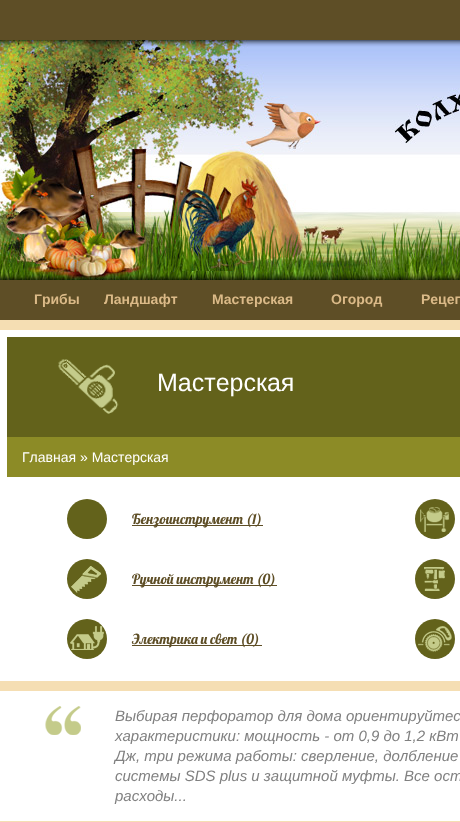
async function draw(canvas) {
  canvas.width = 460;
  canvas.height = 822;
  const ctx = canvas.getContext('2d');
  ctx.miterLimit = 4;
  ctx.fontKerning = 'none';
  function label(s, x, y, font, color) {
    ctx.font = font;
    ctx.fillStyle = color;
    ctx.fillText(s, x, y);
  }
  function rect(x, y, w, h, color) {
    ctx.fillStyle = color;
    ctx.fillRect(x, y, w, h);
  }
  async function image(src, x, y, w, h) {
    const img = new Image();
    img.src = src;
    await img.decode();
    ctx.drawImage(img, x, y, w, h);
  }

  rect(0, 0, 460, 822, '#f5deb3');
  rect(0, 0, 460, 40, '#5e4e26');
  await image('assets/img1.png', 0, 40, 460, 240);
  rect(0, 280, 460, 40, '#5e4e26');
  label('Грибы', 34, 304, 'bold 14px Liberation Sans', '#dbba88');
  label('Ландшафт', 104, 304, 'bold 14px Liberation Sans', '#dbba88');
  label('Мастерская', 212, 304, 'bold 14px Liberation Sans', '#dbba88');
  label('Огород', 331, 304, 'bold 14px Liberation Sans', '#dbba88');
  label('Рецеп', 421, 304, 'bold 14px Liberation Sans', '#dbba88');
  rect(0, 330, 460, 351, '#fff');
  rect(7, 337, 453, 100, '#63621b');
  await image('assets/img2.png', 58, 359, 61, 55);
  label('Мастерская', 157, 391, '25px Liberation Sans', '#fff');
  rect(7, 437, 453, 40, '#8c8b26');
  label('Главная » Мастерская', 22, 462, '14px Liberation Sans', '#fff');
  ctx.fillStyle = '#63621b';
  ctx.beginPath();
  ctx.arc(87, 519, 20, 0, 2 * Math.PI);
  ctx.fill();
  rect(132, 525, 131, 1, '#5e4e26');
  label('Бензоинструмент (1)', 132, 524, '14px Lobster', '#5e4e26');
  ctx.fillStyle = '#63621b';
  ctx.beginPath();
  ctx.arc(435, 519, 20, 0, 2 * Math.PI);
  ctx.fill();
  await image('assets/img3.png', 420, 507, 29, 25);
  ctx.beginPath();
  ctx.arc(87, 579, 20, 0, 2 * Math.PI);
  ctx.fill();
  await image('assets/img4.png', 71, 566, 30, 27);
  rect(132, 585, 145, 1, '#5e4e26');
  label('Ручной инструмент (0)', 132, 584, '14px Lobster', '#5e4e26');
  ctx.fillStyle = '#63621b';
  ctx.beginPath();
  ctx.arc(435, 579, 20, 0, 2 * Math.PI);
  ctx.fill();
  await image('assets/img5.png', 424, 567, 21, 24);
  ctx.beginPath();
  ctx.arc(87, 639, 20, 0, 2 * Math.PI);
  ctx.fill();
  await image('assets/img6.png', 70, 626, 34, 24);
  rect(132, 645, 130, 1, '#5e4e26');
  label('Электрика и свет (0)', 132, 644, '14px Lobster', '#5e4e26');
  ctx.fillStyle = '#63621b';
  ctx.beginPath();
  ctx.arc(435, 639, 20, 0, 2 * Math.PI);
  ctx.fill();
  await image('assets/img7.png', 418, 626, 34, 26);
  rect(0, 691, 460, 130, '#fff');
  await image('assets/img8.png', 45, 706, 36, 29);
  label('Выбирая перфоратор для дома ориентируйтес', 115, 721, 'italic 15px Liberation Sans', '#808080');
  label('характеристики: мощность - от 0,9 до 1,2 кВт', 115, 741, 'italic 15px Liberation Sans', '#808080');
  label('Дж, три режима работы: сверление, долбление', 115, 761, 'italic 15px Liberation Sans', '#808080');
  label('системы SDS plus и защитной муфты. Все ост', 115, 781, 'italic 15px Liberation Sans', '#808080');
  label('расходы...', 115, 801, 'italic 15px Liberation Sans', '#808080');
}

draw(document.querySelector('canvas'));
